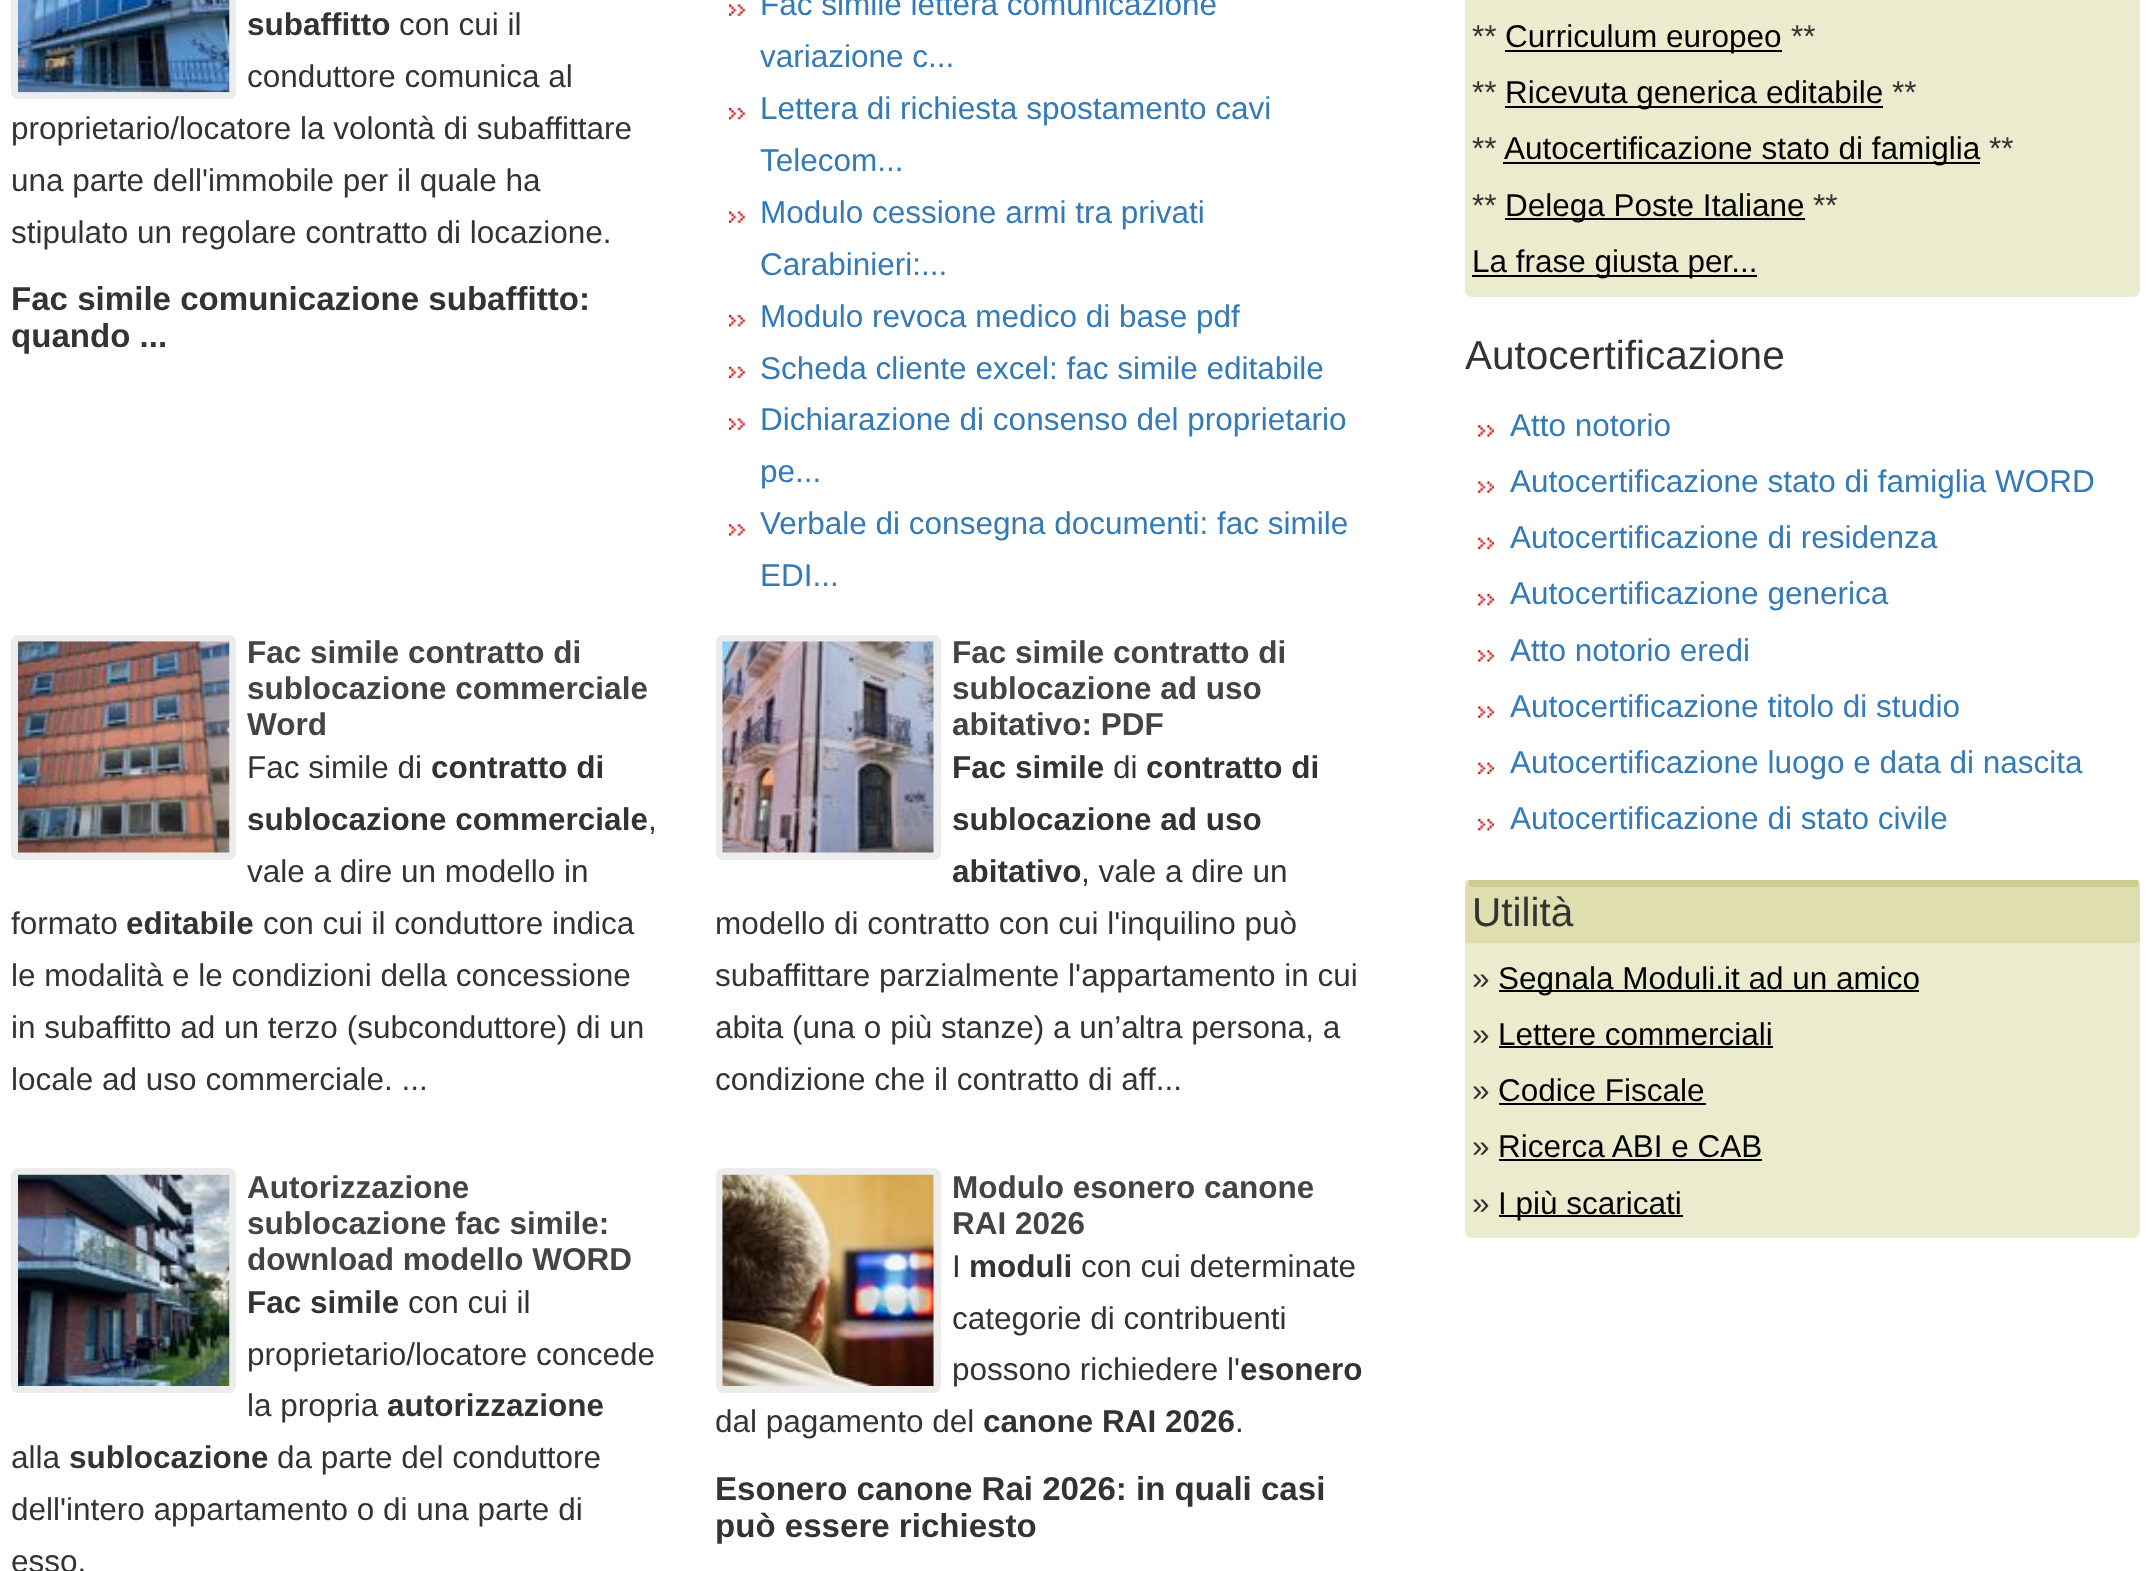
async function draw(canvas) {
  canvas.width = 2150;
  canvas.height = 1571;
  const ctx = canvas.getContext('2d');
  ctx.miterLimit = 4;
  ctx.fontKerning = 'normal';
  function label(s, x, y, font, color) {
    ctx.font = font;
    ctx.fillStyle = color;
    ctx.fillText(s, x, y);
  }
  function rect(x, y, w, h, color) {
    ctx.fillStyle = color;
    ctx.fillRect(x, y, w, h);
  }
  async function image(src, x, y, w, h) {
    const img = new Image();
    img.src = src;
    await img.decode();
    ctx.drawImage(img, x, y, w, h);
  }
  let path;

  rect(0, 0, 2150, 1571, '#fff');
  ctx.beginPath();
  ctx.roundRect(14.5, -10.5, 218, 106, 3.5);
  ctx.strokeStyle = '#ececec';
  ctx.lineWidth = 7;
  ctx.stroke();
  await image('assets/img1.png', 18, 0, 212, 93);
  label('subaffitto', 247, 35, 'bold 31.5px Liberation Sans', '#333');
  label('con cui il', 399, 35, '31.5px Liberation Sans', '#333');
  label('conduttore comunica al', 247, 87, '31.5px Liberation Sans', '#333');
  label('proprietario/locatore la volontà di subaffittare', 11, 139, '31.5px Liberation Sans', '#333');
  label('una parte dell\'immobile per il quale ha', 11, 191, '31.5px Liberation Sans', '#333');
  label('stipulato un regolare contratto di locazione.', 11, 243, '31.5px Liberation Sans', '#333');
  label('Fac simile comunicazione subaffitto:', 11, 310, 'bold 33.1px Liberation Sans', '#333');
  label('quando ...', 11, 347, 'bold 33.1px Liberation Sans', '#333');
  await image('assets/img2.png', 729, 4, 16, 12);
  label('Fac simile lettera comunicazione', 760, 15, '31.5px Liberation Sans', '#337ab7');
  label('variazione c...', 760, 67, '31.5px Liberation Sans', '#337ab7');
  await image('assets/img3.png', 729, 108, 16, 12);
  label('Lettera di richiesta spostamento cavi', 760, 119, '31.5px Liberation Sans', '#337ab7');
  label('Telecom...', 760, 171, '31.5px Liberation Sans', '#337ab7');
  await image('assets/img2.png', 729, 211, 16, 12);
  label('Modulo cessione armi tra privati', 760, 223, '31.5px Liberation Sans', '#337ab7');
  label('Carabinieri:...', 760, 275, '31.5px Liberation Sans', '#337ab7');
  await image('assets/img3.png', 729, 315, 16, 12);
  label('Modulo revoca medico di base pdf', 760, 327, '31.5px Liberation Sans', '#337ab7');
  await image('assets/img4.png', 729, 366, 16, 12);
  label('Scheda cliente excel: fac simile editabile', 760, 379, '31.5px Liberation Sans', '#337ab7');
  await image('assets/img2.png', 729, 418, 16, 12);
  label('Dichiarazione di consenso del proprietario', 760, 430, '31.5px Liberation Sans', '#337ab7');
  label('pe...', 760, 482, '31.5px Liberation Sans', '#337ab7');
  await image('assets/img5.png', 729, 524, 16, 12);
  label('Verbale di consegna documenti: fac simile', 760, 534, '31.5px Liberation Sans', '#337ab7');
  label('EDI...', 760, 586, '31.5px Liberation Sans', '#337ab7');
  ctx.beginPath();
  ctx.roundRect(14.5, 638.5, 218, 218, 3.5);
  ctx.stroke();
  await image('assets/img6.png', 18, 641, 212, 212);
  label('Fac simile contratto di', 247, 663, 'bold 31.5px Liberation Sans', '#444');
  label('sublocazione commerciale', 247, 699, 'bold 31.5px Liberation Sans', '#444');
  label('Word', 247, 735, 'bold 31.5px Liberation Sans', '#444');
  label('Fac simile di', 247, 778, '31.5px Liberation Sans', '#333');
  label('contratto di', 431, 778, 'bold 31.5px Liberation Sans', '#333');
  label('sublocazione commerciale', 247, 830, 'bold 31.5px Liberation Sans', '#333');
  label(',', 648, 830, '31.5px Liberation Sans', '#333');
  label('vale a dire un modello in', 247, 882, '31.5px Liberation Sans', '#333');
  label('formato', 11, 934, '31.5px Liberation Sans', '#333');
  label('editabile', 126, 934, 'bold 31.5px Liberation Sans', '#333');
  label('con cui il conduttore indica', 263, 934, '31.5px Liberation Sans', '#333');
  label('le modalità e le condizioni della concessione', 11, 986, '31.5px Liberation Sans', '#333');
  label('in subaffitto ad un terzo (subconduttore) di un', 11, 1038, '31.5px Liberation Sans', '#333');
  label('locale ad uso commerciale. ...', 11, 1090, '31.5px Liberation Sans', '#333');
  ctx.beginPath();
  ctx.roundRect(719.5, 638.5, 218, 218, 3.5);
  ctx.stroke();
  await image('assets/img7.png', 722, 641, 212, 212);
  label('Fac simile contratto di', 952, 663, 'bold 31.5px Liberation Sans', '#444');
  label('sublocazione ad uso', 952, 699, 'bold 31.5px Liberation Sans', '#444');
  label('abitativo: PDF', 952, 735, 'bold 31.5px Liberation Sans', '#444');
  label('Fac simile', 952, 778, 'bold 31.5px Liberation Sans', '#333');
  label('di', 1113, 778, '31.5px Liberation Sans', '#333');
  label('contratto di', 1146, 778, 'bold 31.5px Liberation Sans', '#333');
  label('sublocazione ad uso', 952, 830, 'bold 31.5px Liberation Sans', '#333');
  label('abitativo', 952, 882, 'bold 31.5px Liberation Sans', '#333');
  label(', vale a dire un', 1081, 882, '31.5px Liberation Sans', '#333');
  label('modello di contratto con cui l\'inquilino può', 715, 934, '31.5px Liberation Sans', '#333');
  label('subaffittare parzialmente l\'appartamento in cui', 715, 986, '31.5px Liberation Sans', '#333');
  label('abita (una o più stanze) a un’altra persona, a', 715, 1038, '31.5px Liberation Sans', '#333');
  label('condizione che il contratto di aff...', 715, 1090, '31.5px Liberation Sans', '#333');
  ctx.beginPath();
  ctx.roundRect(14.5, 1171.5, 218, 218, 3.5);
  ctx.stroke();
  await image('assets/img8.png', 18, 1174, 212, 212);
  label('Autorizzazione', 247, 1198, 'bold 31.5px Liberation Sans', '#444');
  label('sublocazione fac simile:', 247, 1234, 'bold 31.5px Liberation Sans', '#444');
  label('download modello WORD', 247, 1270, 'bold 31.5px Liberation Sans', '#444');
  label('Fac simile', 247, 1313, 'bold 31.5px Liberation Sans', '#333');
  label('con cui il', 408, 1313, '31.5px Liberation Sans', '#333');
  label('proprietario/locatore concede', 247, 1365, '31.5px Liberation Sans', '#333');
  label('la propria', 247, 1416, '31.5px Liberation Sans', '#333');
  label('autorizzazione', 387, 1416, 'bold 31.5px Liberation Sans', '#333');
  label('alla', 11, 1468, '31.5px Liberation Sans', '#333');
  label('sublocazione', 69, 1468, 'bold 31.5px Liberation Sans', '#333');
  label('da parte del conduttore', 277, 1468, '31.5px Liberation Sans', '#333');
  label('dell\'intero appartamento o di una parte di', 11, 1520, '31.5px Liberation Sans', '#333');
  label('esso.', 11, 1572, '31.5px Liberation Sans', '#333');
  ctx.beginPath();
  ctx.roundRect(719.5, 1171.5, 218, 218, 3.5);
  ctx.stroke();
  await image('assets/img9.png', 722, 1174, 212, 212);
  label('Modulo esonero canone', 952, 1198, 'bold 31.5px Liberation Sans', '#444');
  label('RAI 2026', 952, 1234, 'bold 31.5px Liberation Sans', '#444');
  label('I', 952, 1277, '31.5px Liberation Sans', '#333');
  label('moduli', 969, 1277, 'bold 31.5px Liberation Sans', '#333');
  label('con cui determinate', 1081, 1277, '31.5px Liberation Sans', '#333');
  label('categorie di contribuenti', 952, 1329, '31.5px Liberation Sans', '#333');
  label('possono richiedere l\'', 952, 1380, '31.5px Liberation Sans', '#333');
  label('esonero', 1240, 1380, 'bold 31.5px Liberation Sans', '#333');
  label('dal pagamento del', 715, 1432, '31.5px Liberation Sans', '#333');
  label('canone RAI 2026', 983, 1432, 'bold 31.5px Liberation Sans', '#333');
  label('.', 1235, 1432, '31.5px Liberation Sans', '#333');
  label('Esonero canone Rai 2026: in quali casi', 715, 1500, 'bold 33.1px Liberation Sans', '#333');
  label('può essere richiesto', 715, 1537, 'bold 33.1px Liberation Sans', '#333');
  ctx.fillStyle = '#ebebce';
  path = new Path2D('M1465-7H2140V290C2140 294 2137 297 2133 297H1472C1468 297 1465 294 1465 290Z');
  ctx.fill(path);
  label('**', 1472, 47, '31.5px Liberation Sans', '#333');
  rect(1505, 50, 277, 2, '#000');
  label('Curriculum europeo', 1505, 47, '31.5px Liberation Sans', '#000');
  label('**', 1791, 47, '31.5px Liberation Sans', '#333');
  label('**', 1472, 103, '31.5px Liberation Sans', '#333');
  rect(1505, 106, 378, 2, '#000');
  label('Ricevuta generica editabile', 1505, 103, '31.5px Liberation Sans', '#000');
  label('**', 1892, 103, '31.5px Liberation Sans', '#333');
  label('**', 1472, 159, '31.5px Liberation Sans', '#333');
  rect(1503, 162, 477, 2, '#000');
  label('Autocertificazione stato di famiglia', 1504, 159, '31.5px Liberation Sans', '#000');
  label('**', 1989, 159, '31.5px Liberation Sans', '#333');
  label('**', 1472, 216, '31.5px Liberation Sans', '#333');
  rect(1505, 218, 300, 2, '#000');
  label('Delega Poste Italiane', 1505, 216, '31.5px Liberation Sans', '#000');
  label('**', 1813, 216, '31.5px Liberation Sans', '#333');
  rect(1472, 275, 285, 2, '#000');
  label('La frase giusta per...', 1472, 272, '31.5px Liberation Sans', '#000');
  label('Autocertificazione', 1465, 369, '40.5px Liberation Sans', '#333');
  await image('assets/img10.png', 1478, 425, 16, 12);
  label('Atto notorio', 1510, 436, '31.5px Liberation Sans', '#337ab7');
  await image('assets/img11.png', 1478, 481, 16, 12);
  label('Autocertificazione stato di famiglia WORD', 1510, 492, '31.5px Liberation Sans', '#337ab7');
  await image('assets/img12.png', 1478, 537, 16, 12);
  label('Autocertificazione di residenza', 1510, 548, '31.5px Liberation Sans', '#337ab7');
  await image('assets/img13.png', 1478, 594, 16, 12);
  label('Autocertificazione generica', 1510, 604, '31.5px Liberation Sans', '#337ab7');
  await image('assets/img10.png', 1478, 650, 16, 12);
  label('Atto notorio eredi', 1510, 661, '31.5px Liberation Sans', '#337ab7');
  await image('assets/img11.png', 1478, 706, 16, 12);
  label('Autocertificazione titolo di studio', 1510, 717, '31.5px Liberation Sans', '#337ab7');
  await image('assets/img12.png', 1478, 762, 16, 12);
  label('Autocertificazione luogo e data di nascita', 1510, 773, '31.5px Liberation Sans', '#337ab7');
  await image('assets/img13.png', 1478, 819, 16, 12);
  label('Autocertificazione di stato civile', 1510, 829, '31.5px Liberation Sans', '#337ab7');
  ctx.fillStyle = '#ebebce';
  ctx.beginPath();
  ctx.roundRect(1465, 880, 675, 358, [0, 0, 7, 7]);
  ctx.fill();
  ctx.fillStyle = '#dedeae';
  ctx.beginPath();
  ctx.roundRect(1465, 880, 675, 63, [7, 7, 0, 0]);
  ctx.fill();
  rect(1469, 880, 669, 7, '#cccc8f');
  label('Utilità', 1472, 926, '40.5px Liberation Sans', '#333');
  label('»', 1472, 989, '31.5px Liberation Sans', '#333');
  rect(1499, 990, 420, 2, '#000');
  label('Segnala Moduli.it ad un amico', 1498, 989, '31.5px Liberation Sans', '#000');
  label('»', 1472, 1045, '31.5px Liberation Sans', '#333');
  label('Lettere commerciali', 1498, 1045, '31.5px Liberation Sans', '#000');
  rect(1499, 1046, 274, 2, '#000');
  label('»', 1472, 1101, '31.5px Liberation Sans', '#333');
  label('Codice Fiscale', 1498, 1101, '31.5px Liberation Sans', '#000');
  rect(1499, 1103, 207, 2, '#000');
  label('»', 1472, 1157, '31.5px Liberation Sans', '#333');
  label('Ricerca ABI e CAB', 1498, 1157, '31.5px Liberation Sans', '#000');
  rect(1499, 1159, 263, 2, '#000');
  label('»', 1472, 1214, '31.5px Liberation Sans', '#333');
  rect(1499, 1215, 184, 2, '#000');
  label('I più scaricati', 1498, 1214, '31.5px Liberation Sans', '#000');
}

draw(document.querySelector('canvas'));
